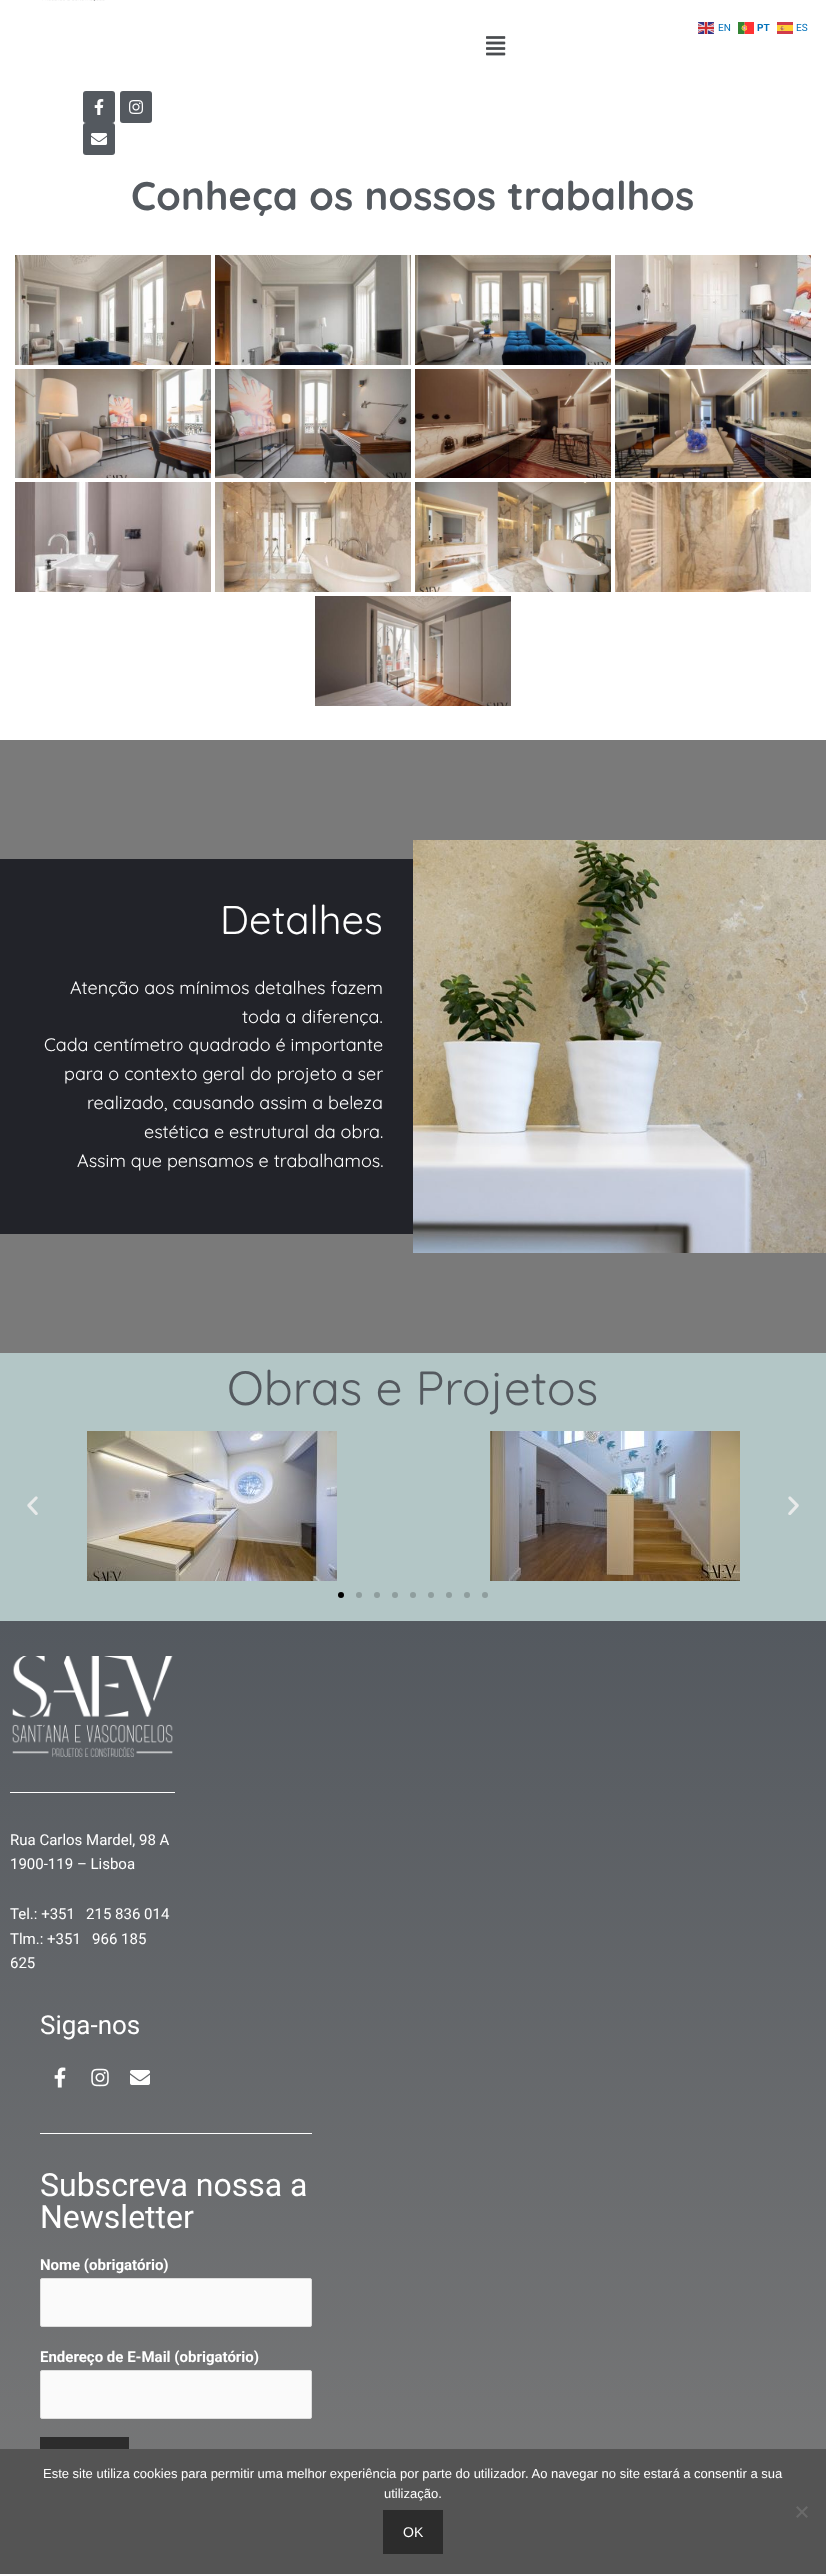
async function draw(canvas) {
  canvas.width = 826;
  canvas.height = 2574;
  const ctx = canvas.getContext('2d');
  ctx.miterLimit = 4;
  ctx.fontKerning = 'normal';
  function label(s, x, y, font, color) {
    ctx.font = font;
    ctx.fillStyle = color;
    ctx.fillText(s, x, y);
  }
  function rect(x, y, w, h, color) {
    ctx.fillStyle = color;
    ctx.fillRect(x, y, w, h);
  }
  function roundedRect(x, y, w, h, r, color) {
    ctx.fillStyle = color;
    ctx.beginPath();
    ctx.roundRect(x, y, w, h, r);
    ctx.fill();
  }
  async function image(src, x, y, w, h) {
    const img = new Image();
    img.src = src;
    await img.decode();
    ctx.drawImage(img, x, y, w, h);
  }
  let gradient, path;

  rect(0, 0, 826, 2574, '#fff');
  await image('assets/img1.png', 698, 22, 16, 12);
  label('EN', 718, 31, '10px Roboto', '#0170b9');
  await image('assets/img2.png', 738, 22, 16, 12);
  label('PT', 757, 31, 'bold 10px Roboto', '#0170b9');
  await image('assets/img3.png', 777, 22, 16, 12);
  label('ES', 796, 31, '10px Roboto', '#0170b9');
  await image('assets/img4.png', 42, 0, 63, 1);
  await image('assets/img5.png', 486, 36, 20, 20);
  roundedRect(83, 91, 32, 32, 3, '#54595f');
  await image('assets/img6.png', 94, 99, 10, 16);
  roundedRect(120, 91, 32, 32, 3, '#54595f');
  await image('assets/img7.png', 129, 100, 14, 14);
  roundedRect(83, 123, 32, 32, 3, '#54595f');
  await image('assets/img8.png', 91, 133, 16, 12);
  label('Conheça os nossos trabalhos', 131, 210, 'bold 40px Quicksand', '#54595f');
  await image('assets/img9.png', 15, 255, 196, 110);
  await image('assets/img10.png', 215, 255, 196, 110);
  await image('assets/img11.png', 415, 255, 196, 110);
  await image('assets/img12.png', 615, 255, 196, 110);
  await image('assets/img13.png', 15, 369, 196, 109);
  await image('assets/img14.png', 215, 369, 196, 109);
  await image('assets/img15.png', 415, 369, 196, 109);
  await image('assets/img16.png', 615, 369, 196, 109);
  await image('assets/img17.png', 15, 482, 196, 110);
  await image('assets/img18.png', 215, 482, 196, 110);
  await image('assets/img19.png', 415, 482, 196, 110);
  await image('assets/img20.png', 615, 482, 196, 110);
  await image('assets/img21.png', 315, 596, 196, 110);
  rect(0, 740, 826, 613, '#7a7a7a');
  rect(0, 859, 413, 375, '#222329');
  label('Detalhes', 220, 934, '40px Quicksand', '#fff');
  label('Atenção aos mínimos detalhes fazem', 70, 994, '18px Quicksand', '#fff');
  label('toda a diferença.', 242, 1023, '18px Quicksand', '#fff');
  label('Cada centímetro quadrado é importante', 44, 1051, '18px Quicksand', '#fff');
  label('para o contexto geral do projeto a ser', 64, 1080, '18px Quicksand', '#fff');
  label('realizado, causando assim a beleza', 87, 1109, '18px Quicksand', '#fff');
  label('estética e estrutural da obra.', 144, 1138, '18px Quicksand', '#fff');
  label('Assim que pensamos e trabalhamos.', 77, 1167, '18px Quicksand', '#fff');
  await image('assets/img22.png', 413, 840, 413, 413);
  rect(0, 1353, 826, 268, '#b3c6c6');
  label('Obras e Projetos', 227, 1405, '48px Quicksand', '#54595f');
  await image('assets/img23.png', 27, 1496, 11, 19);
  await image('assets/img24.png', 87, 1431, 250, 150);
  await image('assets/img25.png', 490, 1431, 250, 150);
  await image('assets/img26.png', 788, 1496, 11, 19);
  ctx.fillStyle = '#000';
  ctx.beginPath();
  ctx.arc(341, 1595, 3, 0, 2 * Math.PI);
  ctx.fill();
  ctx.fillStyle = '#8f9e9e';
  ctx.beginPath();
  ctx.arc(359, 1595, 3, 0, 2 * Math.PI);
  ctx.fill();
  ctx.beginPath();
  ctx.arc(377, 1595, 3, 0, 2 * Math.PI);
  ctx.fill();
  ctx.beginPath();
  ctx.arc(395, 1595, 3, 0, 2 * Math.PI);
  ctx.fill();
  ctx.beginPath();
  ctx.arc(413, 1595, 3, 0, 2 * Math.PI);
  ctx.fill();
  ctx.beginPath();
  ctx.arc(431, 1595, 3, 0, 2 * Math.PI);
  ctx.fill();
  ctx.beginPath();
  ctx.arc(449, 1595, 3, 0, 2 * Math.PI);
  ctx.fill();
  ctx.beginPath();
  ctx.arc(467, 1595, 3, 0, 2 * Math.PI);
  ctx.fill();
  ctx.beginPath();
  ctx.arc(485, 1595, 3, 0, 2 * Math.PI);
  ctx.fill();
  gradient = ctx.createLinearGradient(413, 1621, 413, 2574);
  gradient.addColorStop(0, '#54595f');
  gradient.addColorStop(1, '#7a7a7a');
  ctx.fillStyle = gradient;
  ctx.fillRect(0, 1621, 826, 828);
  await image('assets/img27.png', 12, 1656, 161, 101);
  rect(10, 1792, 165, 1, '#fff');
  label('Rua Carlos Mardel, 98 A', 10, 1845, '15px Roboto', '#fff');
  label('1900-119 – Lisboa', 10, 1869, '15px Roboto', '#fff');
  label('Tel.: +351   215 836 014', 10, 1919, '15px Roboto', '#fff');
  label('Tlm.: +351   966 185', 10, 1944, '15px Roboto', '#fff');
  label('625', 10, 1968, '15px Roboto', '#fff');
  label('Siga-nos', 40, 2034, '26px Roboto', '#fff');
  await image('assets/img28.png', 54, 2067, 12, 21);
  await image('assets/img29.png', 91, 2068, 18, 19);
  await image('assets/img30.png', 130, 2070, 20, 15);
  rect(40, 2133, 272, 1, '#fff');
  label('Subscreva nossa a', 40, 2196, '32px Roboto', '#fff');
  label('Newsletter', 40, 2228, '32px Roboto', '#fff');
  label('Nome (obrigatório)', 40, 2270, 'bold 15px Roboto', '#fff');
  ctx.fillStyle = '#fafafa';
  ctx.beginPath();
  ctx.roundRect(40.5, 2278.5, 271, 48, 1.5);
  ctx.fill();
  ctx.strokeStyle = '#ddd';
  ctx.stroke();
  label('Endereço de E-Mail (obrigatório)', 40, 2362, 'bold 15px Roboto', '#fff');
  ctx.fillStyle = '#fafafa';
  ctx.beginPath();
  ctx.roundRect(40.5, 2370.5, 271, 48, 1.5);
  ctx.fill();
  ctx.stroke();
  rect(40, 2437, 89, 12, '#2c2c2c');
  rect(0, 2449, 826, 125, '#545454');
  label('Este site utiliza cookies para permitir uma melhor experiência por parte do utilizador. Ao navegar no site estará a consentir a sua', 43, 2478, '13px Liberation Sans', '#fff');
  label('utilização.', 384, 2498, '13px Liberation Sans', '#fff');
  ctx.fillStyle = '#6a6a6a';
  path = new Path2D('M806.5 2506L808 2507.5L797.5 2518L796 2516.5Z');
  ctx.fill(path);
  path = new Path2D('M796 2507.5L797.5 2506L808 2516.5L806.5 2518Z');
  ctx.fill(path);
  rect(383, 2510, 60, 44, '#2c2c2c');
  label('OK', 403, 2537, '14px Liberation Sans', '#fff');
}

draw(document.querySelector('canvas'));
